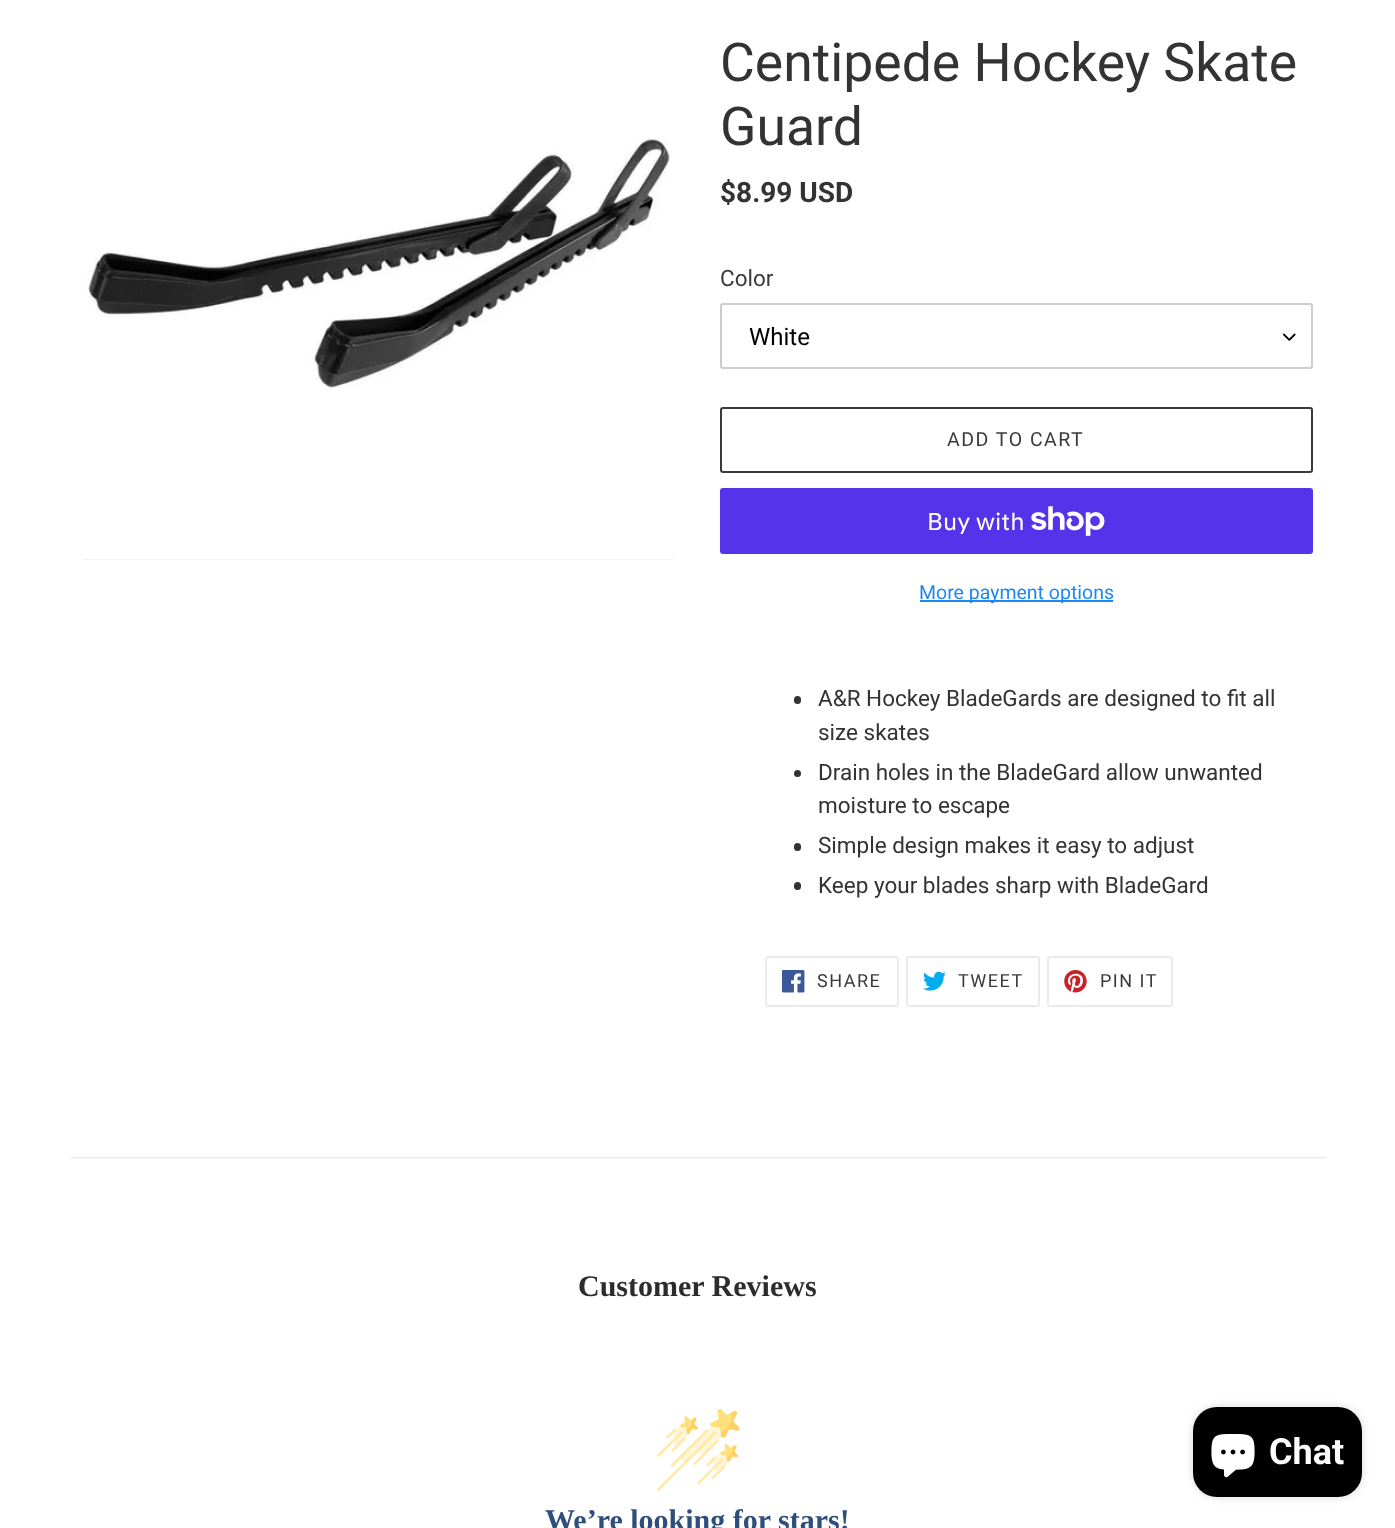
async function draw(canvas) {
  canvas.width = 1395;
  canvas.height = 1528;
  const ctx = canvas.getContext('2d');
  ctx.miterLimit = 4;
  ctx.fontKerning = 'normal';
  function label(s, x, y, font, color) {
    ctx.font = font;
    ctx.fillStyle = color;
    ctx.fillText(s, x, y);
  }
  function rect(x, y, w, h, color) {
    ctx.fillStyle = color;
    ctx.fillRect(x, y, w, h);
  }
  function roundedRect(x, y, w, h, r, color) {
    ctx.fillStyle = color;
    ctx.beginPath();
    ctx.roundRect(x, y, w, h, r);
    ctx.fill();
  }
  async function image(src, x, y, w, h) {
    const img = new Image();
    img.src = src;
    await img.decode();
    ctx.drawImage(img, x, y, w, h);
  }

  rect(0, 0, 1395, 1528, '#fff');
  rect(83, 559, 592, 1, '#f4f4f4');
  await image('assets/img1.png', 83, 0, 592, 559);
  label('Centipede Hockey Skate', 720, 81, '53.5px Roboto', '#333');
  label('Guard', 720, 145, '53.5px Roboto', '#333');
  label('$8.99 USD', 720, 202, 'bold 28px Roboto', '#333');
  label('Color', 720, 286, '22.5px Roboto', '#3a3a3a');
  await image('assets/img2.png', 1283, 333, 13, 8);
  ctx.beginPath();
  ctx.roundRect(721, 304, 591, 64, 2);
  ctx.strokeStyle = '#ccc';
  ctx.lineWidth = 2;
  ctx.stroke();
  label('White', 749, 345, '24px Roboto', '#000');
  ctx.beginPath();
  ctx.roundRect(721, 408, 591, 64, 2);
  ctx.strokeStyle = '#3a3a3a';
  ctx.stroke();
  ctx.letterSpacing = '1.5px';
  label('ADD TO CART', 947, 446, '19.5px Roboto', '#3a3a3a');
  roundedRect(720, 488, 593, 66, 3, '#5433eb');
  ctx.letterSpacing = '0px';
  label('Buy with', 927, 530, '24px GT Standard', '#fff');
  await image('assets/img3.png', 1031, 506, 74, 30);
  rect(920, 600, 193, 2, '#1e87f0');
  label('More payment options', 919, 599, '19.5px Roboto', '#1e87f0');
  roundedRect(794, 696, 7, 8, 3.5, '#333232');
  label('A&R Hockey BladeGards are designed to fit all', 818, 706, '22.5px Roboto', '#333');
  label('size skates', 818, 740, '22.5px Roboto', '#333');
  ctx.fillStyle = '#333232';
  ctx.beginPath();
  ctx.arc(797.5, 773.5, 3.5, 0, 2 * Math.PI);
  ctx.fill();
  label('Drain holes in the BladeGard allow unwanted', 818, 780, '22.5px Roboto', '#333');
  label('moisture to escape', 818, 813, '22.5px Roboto', '#333');
  roundedRect(794, 843, 7, 8, 3.5, '#333232');
  label('Simple design makes it easy to adjust', 818, 853, '22.5px Roboto', '#333');
  roundedRect(794, 882, 7, 8, 3.5, '#333232');
  label('Keep your blades sharp with BladeGard', 818, 893, '22.5px Roboto', '#333');
  ctx.beginPath();
  ctx.roundRect(766, 957, 132, 49, 2);
  ctx.strokeStyle = '#ebebeb';
  ctx.stroke();
  await image('assets/img4.png', 782, 970, 23, 23);
  ctx.letterSpacing = '1.5px';
  label('SHARE', 817, 987, '18px Roboto', '#3a3a3a');
  ctx.beginPath();
  ctx.roundRect(907, 957, 132, 49, 2);
  ctx.stroke();
  await image('assets/img5.png', 923, 971, 23, 20);
  label('TWEET', 958, 987, '18px Roboto', '#3a3a3a');
  ctx.beginPath();
  ctx.roundRect(1048, 957, 124, 49, 2);
  ctx.stroke();
  await image('assets/img6.png', 1064, 970, 23, 23);
  label('PIN IT', 1100, 987, '18px Roboto', '#3a3a3a');
  await image('assets/img7.png', 70, 1157, 1256, 2);
  ctx.letterSpacing = '0px';
  label('Customer Reviews', 578, 1296, 'bold 30px Liberation Serif', '#2c2c2c');
  await image('assets/img8.png', 657, 1409, 83, 82);
  label('We’re looking for stars!', 545, 1530, 'bold 30px Liberation Serif', '#2e4f7c');
  ctx.fillStyle = '#00000026';
  ctx.filter = 'blur(4px)';
  ctx.beginPath();
  ctx.roundRect(1193, 1407, 169, 90, 24);
  ctx.fill();
  ctx.filter = 'none';
  roundedRect(1193, 1407, 169, 90, 24, '#000');
  await image('assets/img9.png', 1211, 1434, 44, 44);
  label('Chat', 1269, 1464, 'bold 36px Roboto', '#fff');
}

draw(document.querySelector('canvas'));
